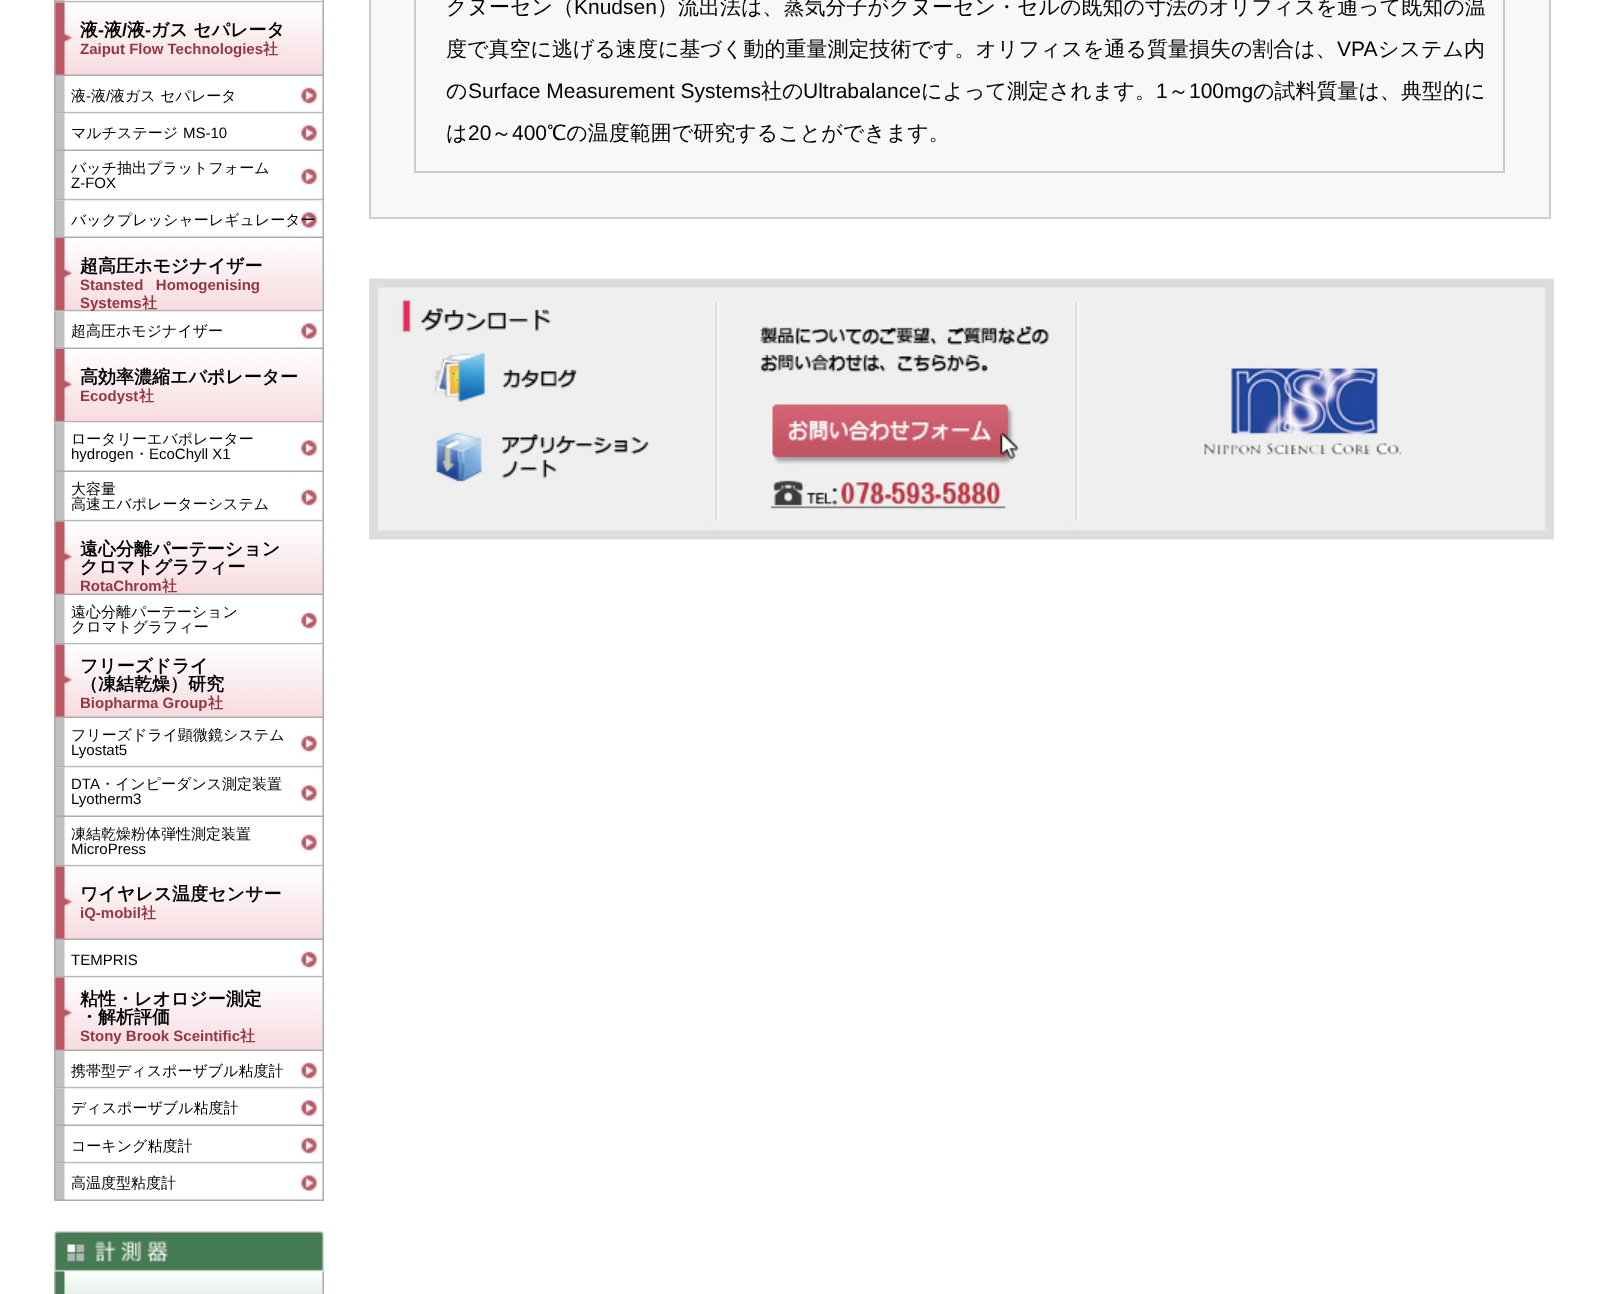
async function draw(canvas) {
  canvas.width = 1606;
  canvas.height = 1294;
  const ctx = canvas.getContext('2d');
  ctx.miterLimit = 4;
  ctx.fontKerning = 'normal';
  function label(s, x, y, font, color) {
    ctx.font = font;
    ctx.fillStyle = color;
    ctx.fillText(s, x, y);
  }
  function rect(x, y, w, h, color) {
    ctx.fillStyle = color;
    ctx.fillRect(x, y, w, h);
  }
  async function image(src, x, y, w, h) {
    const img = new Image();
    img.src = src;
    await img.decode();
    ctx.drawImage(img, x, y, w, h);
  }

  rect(0, 0, 1606, 1294, '#fff');
  await image('assets/img1.png', 54, 0, 270, 3);
  await image('assets/img2.png', 54, 2, 270, 74);
  label('液', 80, 36, 'bold 18px WenQuanYi Zen Hei', '#000');
  label('-', 98, 36, 'bold 18px Liberation Sans', '#000');
  label('液', 104, 36, 'bold 18px WenQuanYi Zen Hei', '#000');
  label('/', 122, 36, 'bold 18px Liberation Sans', '#000');
  label('液', 127, 36, 'bold 18px WenQuanYi Zen Hei', '#000');
  label('-', 145, 36, 'bold 18px Liberation Sans', '#000');
  label('ガス セパレータ', 151, 36, 'bold 18px WenQuanYi Zen Hei', '#000');
  label('Zaiput Flow Technologies', 80, 54, 'bold 15px Liberation Sans', '#983543');
  label('社', 263, 54, 'bold 15px WenQuanYi Zen Hei', '#983543');
  await image('assets/img3.png', 54, 76, 270, 38);
  label('液', 71, 101, '500 15px WenQuanYi Zen Hei', '#000');
  label('-', 86, 101, '15px Liberation Sans', '#000');
  label('液', 91, 101, '500 15px WenQuanYi Zen Hei', '#000');
  label('/', 106, 101, '15px Liberation Sans', '#000');
  label('液ガス セパレータ', 110, 101, '500 15px WenQuanYi Zen Hei', '#000');
  await image('assets/img4.png', 54, 113, 270, 38);
  label('マルチステージ', 71, 138, '500 15px WenQuanYi Zen Hei', '#000');
  label('MS-10', 183, 138, '15px Liberation Sans', '#000');
  await image('assets/img5.png', 54, 151, 270, 50);
  label('バッチ抽出プラットフォーム', 71, 173, '500 15px WenQuanYi Zen Hei', '#000');
  label('Z-FOX', 71, 188, '15px Liberation Sans', '#000');
  await image('assets/img4.png', 54, 200, 270, 38);
  label('バックプレッシャーレギュレーター', 71, 225, '500 15px WenQuanYi Zen Hei', '#000');
  await image('assets/img6.png', 54, 238, 270, 74);
  label('超高圧ホモジナイザー', 80, 272, 'bold 18px WenQuanYi Zen Hei', '#000');
  label('Stansted   Homogenising', 80, 290, 'bold 15px Liberation Sans', '#983543');
  await image('assets/img7.png', 54, 311, 270, 38);
  label('Systems', 80, 308, 'bold 15px Liberation Sans', '#983543');
  label('社', 142, 308, 'bold 15px WenQuanYi Zen Hei', '#983543');
  label('超高圧ホモジナイザー', 71, 336, '500 15px WenQuanYi Zen Hei', '#000');
  await image('assets/img6.png', 54, 349, 270, 74);
  label('高効率濃縮エバポレーター', 80, 383, 'bold 18px WenQuanYi Zen Hei', '#000');
  label('Ecodyst', 80, 401, 'bold 15px Liberation Sans', '#983543');
  label('社', 139, 401, 'bold 15px WenQuanYi Zen Hei', '#983543');
  await image('assets/img8.png', 54, 422, 270, 50);
  label('ロータリーエバポレーター', 71, 444, '500 15px WenQuanYi Zen Hei', '#000');
  label('hydrogen', 71, 459, '15px Liberation Sans', '#000');
  label('・', 134, 459, '500 15px WenQuanYi Zen Hei', '#000');
  label('EcoChyll X1', 149, 459, '15px Liberation Sans', '#000');
  await image('assets/img5.png', 54, 472, 270, 50);
  label('大容量', 71, 494, '500 15px WenQuanYi Zen Hei', '#000');
  label('高速エバポレーターシステム', 71, 509, '500 15px WenQuanYi Zen Hei', '#000');
  await image('assets/img9.png', 54, 521, 270, 74);
  label('遠心分離パーテーション', 80, 555, 'bold 18px WenQuanYi Zen Hei', '#000');
  label('クロマトグラフィー', 80, 573, 'bold 18px WenQuanYi Zen Hei', '#000');
  label('RotaChrom', 80, 591, 'bold 15px Liberation Sans', '#983543');
  label('社', 162, 591, 'bold 15px WenQuanYi Zen Hei', '#983543');
  await image('assets/img5.png', 54, 595, 270, 50);
  label('遠心分離パーテーション', 71, 617, '500 15px WenQuanYi Zen Hei', '#000');
  label('クロマトグラフィー', 71, 632, '500 15px WenQuanYi Zen Hei', '#000');
  await image('assets/img9.png', 54, 644, 270, 74);
  label('フリーズドライ', 80, 672, 'bold 18px WenQuanYi Zen Hei', '#000');
  label('（凍結乾燥）研究', 80, 690, 'bold 18px WenQuanYi Zen Hei', '#000');
  label('Biopharma Group', 80, 708, 'bold 15px Liberation Sans', '#983543');
  label('社', 208, 708, 'bold 15px WenQuanYi Zen Hei', '#983543');
  await image('assets/img5.png', 54, 718, 270, 50);
  label('フリーズドライ顕微鏡システム', 71, 740, '500 15px WenQuanYi Zen Hei', '#000');
  label('Lyostat5', 71, 755, '15px Liberation Sans', '#000');
  await image('assets/img10.png', 54, 767, 270, 50);
  label('DTA', 71, 789, '15px Liberation Sans', '#000');
  label('・インピーダンス測定装置', 100, 789, '500 15px WenQuanYi Zen Hei', '#000');
  label('Lyotherm3', 71, 804, '15px Liberation Sans', '#000');
  await image('assets/img5.png', 54, 817, 270, 50);
  label('凍結乾燥粉体弾性測定装置', 71, 839, '500 15px WenQuanYi Zen Hei', '#000');
  label('MicroPress', 71, 854, '15px Liberation Sans', '#000');
  await image('assets/img9.png', 54, 866, 270, 74);
  label('ワイヤレス温度センサー', 80, 900, 'bold 18px WenQuanYi Zen Hei', '#000');
  label('iQ-mobil', 80, 918, 'bold 15px Liberation Sans', '#983543');
  label('社', 141, 918, 'bold 15px WenQuanYi Zen Hei', '#983543');
  await image('assets/img3.png', 54, 940, 270, 38);
  label('TEMPRIS', 71, 965, '15px Liberation Sans', '#000');
  await image('assets/img2.png', 54, 977, 270, 74);
  label('粘性・レオロジー測定', 80, 1005, 'bold 18px WenQuanYi Zen Hei', '#000');
  label('・解析評価', 80, 1023, 'bold 18px WenQuanYi Zen Hei', '#000');
  label('Stony Brook Sceintific', 80, 1041, 'bold 15px Liberation Sans', '#983543');
  label('社', 240, 1041, 'bold 15px WenQuanYi Zen Hei', '#983543');
  await image('assets/img3.png', 54, 1051, 270, 38);
  label('携帯型ディスポーザブル粘度計', 71, 1076, '500 15px WenQuanYi Zen Hei', '#000');
  await image('assets/img4.png', 54, 1088, 270, 38);
  label('ディスポーザブル粘度計', 71, 1113, '500 15px WenQuanYi Zen Hei', '#000');
  await image('assets/img3.png', 54, 1126, 270, 38);
  label('コーキング粘度計', 71, 1151, '500 15px WenQuanYi Zen Hei', '#000');
  await image('assets/img4.png', 54, 1163, 270, 38);
  label('高温度型粘度計', 71, 1188, '500 15px WenQuanYi Zen Hei', '#000');
  await image('assets/img11.png', 54, 1231, 270, 41);
  await image('assets/img12.png', 54, 1271, 270, 23);
  ctx.fillStyle = '#f8f8f8';
  ctx.beginPath();
  ctx.rect(370, -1, 1180, 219);
  ctx.fill();
  ctx.strokeStyle = '#ccc';
  ctx.lineWidth = 2;
  ctx.stroke();
  rect(1503, 0, 2, 173, '#ccc');
  rect(414, 171, 1091, 2, '#ccc');
  rect(414, 0, 2, 173, '#ccc');
  label('クヌーセン（', 446, 14, '500 21px WenQuanYi Zen Hei', '#000');
  label('Knudsen', 574, 14, '21px Liberation Sans', '#000');
  label('）流出法は、蒸気分子がクヌーセン・セルの既知の寸法のオリフィスを通って既知の温', 657, 14, '500 21px WenQuanYi Zen Hei', '#000');
  label('度で真空に逃げる速度に基づく動的重量測定技術です。オリフィスを通る質量損失の割合は、', 446, 56, '500 21px WenQuanYi Zen Hei', '#000');
  label('VPA', 1337, 56, '21px Liberation Sans', '#000');
  label('システム内', 1378, 56, '500 21px WenQuanYi Zen Hei', '#000');
  label('の', 446, 98, '500 21px WenQuanYi Zen Hei', '#000');
  label('Surface Measurement Systems', 468, 98, '21px Liberation Sans', '#000');
  label('社の', 761, 98, '500 21px WenQuanYi Zen Hei', '#000');
  label('Ultrabalance', 803, 98, '21px Liberation Sans', '#000');
  label('によって測定されます。', 921, 98, '500 21px WenQuanYi Zen Hei', '#000');
  label('1', 1156, 98, '21px Liberation Sans', '#000');
  label('～', 1168, 98, '500 21px WenQuanYi Zen Hei', '#000');
  label('100mg', 1189, 98, '21px Liberation Sans', '#000');
  label('の試料質量は、典型的に', 1253, 98, '500 21px WenQuanYi Zen Hei', '#000');
  label('は', 446, 140, '500 21px WenQuanYi Zen Hei', '#000');
  label('20', 468, 140, '21px Liberation Sans', '#000');
  label('～', 491, 140, '500 21px WenQuanYi Zen Hei', '#000');
  label('400', 512, 140, '21px Liberation Sans', '#000');
  label('℃の温度範囲で研究することができます。', 547, 140, '500 21px WenQuanYi Zen Hei', '#000');
  await image('assets/img13.png', 369, 278, 1185, 262);
}

draw(document.querySelector('canvas'));
